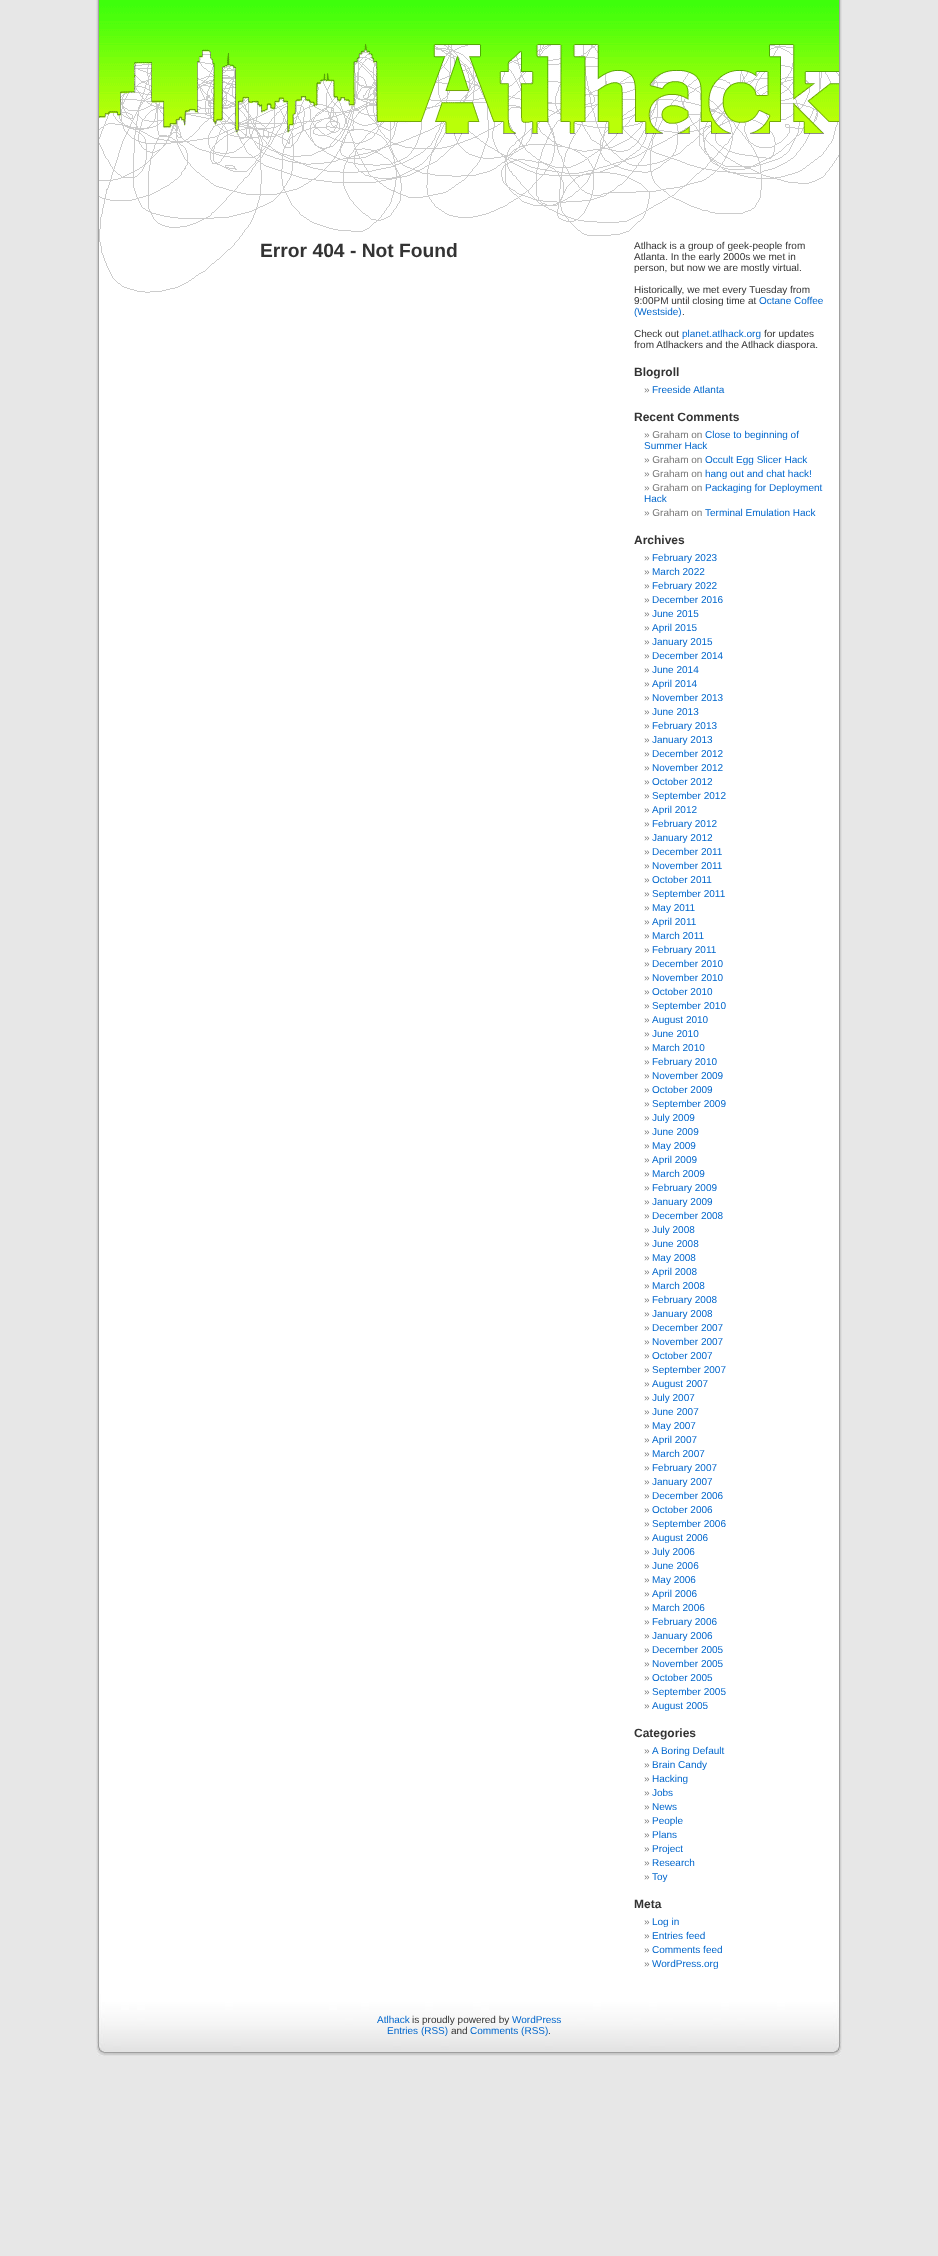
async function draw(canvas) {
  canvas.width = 938;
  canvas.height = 2256;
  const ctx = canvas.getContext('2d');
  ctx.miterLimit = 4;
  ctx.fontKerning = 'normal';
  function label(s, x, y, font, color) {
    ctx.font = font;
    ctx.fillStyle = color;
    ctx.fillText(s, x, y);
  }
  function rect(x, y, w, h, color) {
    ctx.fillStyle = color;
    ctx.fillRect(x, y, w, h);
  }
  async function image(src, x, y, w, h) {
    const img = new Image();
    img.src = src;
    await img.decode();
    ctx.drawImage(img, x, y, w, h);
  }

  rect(0, 0, 938, 2256, '#e7e7e7');
  await image('assets/img1.png', 96, 0, 746, 1994);
  await image('assets/img2.png', 99, 0, 740, 293);
  label('Error 404 - Not Found', 260, 257, 'bold 19.25px Liberation Sans', '#333');
  label('Atlhack is a group of geek-people from', 634, 249, '10px Liberation Sans', '#333');
  label('Atlanta. In the early 2000s we met in', 634, 260, '10px Liberation Sans', '#333');
  label('person, but now we are mostly virtual.', 634, 271, '10px Liberation Sans', '#333');
  label('Historically, we met every Tuesday from', 634, 293, '10px Liberation Sans', '#333');
  label('9:00PM until closing time at', 634, 304, '10px Liberation Sans', '#333');
  label('Octane Coffee', 759, 304, '10px Liberation Sans', '#06c');
  label('(Westside)', 634, 315, '10px Liberation Sans', '#06c');
  label('.', 682, 315, '10px Liberation Sans', '#333');
  label('Check out', 634, 337, '10px Liberation Sans', '#333');
  label('planet.atlhack.org', 682, 337, '10px Liberation Sans', '#06c');
  label('for updates', 764, 337, '10px Liberation Sans', '#333');
  label('from Atlhackers and the Atlhack diaspora.', 634, 348, '10px Liberation Sans', '#333');
  label('Blogroll', 634, 376, 'bold 12px Liberation Sans', '#333');
  label('»', 644, 393, '10px Liberation Sans', '#777');
  label('Freeside Atlanta', 652, 393, '10px Liberation Sans', '#06c');
  label('Recent Comments', 634, 421, 'bold 12px Liberation Sans', '#333');
  label('» Graham on', 644, 438, '10px Liberation Sans', '#777');
  label('Close to beginning of', 705, 438, '10px Liberation Sans', '#06c');
  label('Summer Hack', 644, 449, '10px Liberation Sans', '#06c');
  label('» Graham on', 644, 463, '10px Liberation Sans', '#777');
  label('Occult Egg Slicer Hack', 705, 463, '10px Liberation Sans', '#06c');
  label('» Graham on', 644, 477, '10px Liberation Sans', '#777');
  label('hang out and chat hack!', 705, 477, '10px Liberation Sans', '#06c');
  label('» Graham on', 644, 491, '10px Liberation Sans', '#777');
  label('Packaging for Deployment', 705, 491, '10px Liberation Sans', '#06c');
  label('Hack', 644, 502, '10px Liberation Sans', '#06c');
  label('» Graham on', 644, 516, '10px Liberation Sans', '#777');
  label('Terminal Emulation Hack', 705, 516, '10px Liberation Sans', '#06c');
  label('Archives', 634, 544, 'bold 12px Liberation Sans', '#333');
  label('»', 644, 561, '10px Liberation Sans', '#777');
  label('February 2023', 652, 561, '10px Liberation Sans', '#06c');
  label('»', 644, 575, '10px Liberation Sans', '#777');
  label('March 2022', 652, 575, '10px Liberation Sans', '#06c');
  label('»', 644, 589, '10px Liberation Sans', '#777');
  label('February 2022', 652, 589, '10px Liberation Sans', '#06c');
  label('»', 644, 603, '10px Liberation Sans', '#777');
  label('December 2016', 652, 603, '10px Liberation Sans', '#06c');
  label('»', 644, 617, '10px Liberation Sans', '#777');
  label('June 2015', 652, 617, '10px Liberation Sans', '#06c');
  label('»', 644, 631, '10px Liberation Sans', '#777');
  label('April 2015', 652, 631, '10px Liberation Sans', '#06c');
  label('»', 644, 645, '10px Liberation Sans', '#777');
  label('January 2015', 652, 645, '10px Liberation Sans', '#06c');
  label('»', 644, 659, '10px Liberation Sans', '#777');
  label('December 2014', 652, 659, '10px Liberation Sans', '#06c');
  label('»', 644, 673, '10px Liberation Sans', '#777');
  label('June 2014', 652, 673, '10px Liberation Sans', '#06c');
  label('»', 644, 687, '10px Liberation Sans', '#777');
  label('April 2014', 652, 687, '10px Liberation Sans', '#06c');
  label('»', 644, 701, '10px Liberation Sans', '#777');
  label('November 2013', 652, 701, '10px Liberation Sans', '#06c');
  label('»', 644, 715, '10px Liberation Sans', '#777');
  label('June 2013', 652, 715, '10px Liberation Sans', '#06c');
  label('»', 644, 729, '10px Liberation Sans', '#777');
  label('February 2013', 652, 729, '10px Liberation Sans', '#06c');
  label('»', 644, 743, '10px Liberation Sans', '#777');
  label('January 2013', 652, 743, '10px Liberation Sans', '#06c');
  label('»', 644, 757, '10px Liberation Sans', '#777');
  label('December 2012', 652, 757, '10px Liberation Sans', '#06c');
  label('»', 644, 771, '10px Liberation Sans', '#777');
  label('November 2012', 652, 771, '10px Liberation Sans', '#06c');
  label('»', 644, 785, '10px Liberation Sans', '#777');
  label('October 2012', 652, 785, '10px Liberation Sans', '#06c');
  label('»', 644, 799, '10px Liberation Sans', '#777');
  label('September 2012', 652, 799, '10px Liberation Sans', '#06c');
  label('»', 644, 813, '10px Liberation Sans', '#777');
  label('April 2012', 652, 813, '10px Liberation Sans', '#06c');
  label('»', 644, 827, '10px Liberation Sans', '#777');
  label('February 2012', 652, 827, '10px Liberation Sans', '#06c');
  label('»', 644, 841, '10px Liberation Sans', '#777');
  label('January 2012', 652, 841, '10px Liberation Sans', '#06c');
  label('»', 644, 855, '10px Liberation Sans', '#777');
  label('December 2011', 652, 855, '10px Liberation Sans', '#06c');
  label('»', 644, 869, '10px Liberation Sans', '#777');
  label('November 2011', 652, 869, '10px Liberation Sans', '#06c');
  label('»', 644, 883, '10px Liberation Sans', '#777');
  label('October 2011', 652, 883, '10px Liberation Sans', '#06c');
  label('»', 644, 897, '10px Liberation Sans', '#777');
  label('September 2011', 652, 897, '10px Liberation Sans', '#06c');
  label('»', 644, 911, '10px Liberation Sans', '#777');
  label('May 2011', 652, 911, '10px Liberation Sans', '#06c');
  label('»', 644, 925, '10px Liberation Sans', '#777');
  label('April 2011', 652, 925, '10px Liberation Sans', '#06c');
  label('»', 644, 939, '10px Liberation Sans', '#777');
  label('March 2011', 652, 939, '10px Liberation Sans', '#06c');
  label('»', 644, 953, '10px Liberation Sans', '#777');
  label('February 2011', 652, 953, '10px Liberation Sans', '#06c');
  label('»', 644, 967, '10px Liberation Sans', '#777');
  label('December 2010', 652, 967, '10px Liberation Sans', '#06c');
  label('»', 644, 981, '10px Liberation Sans', '#777');
  label('November 2010', 652, 981, '10px Liberation Sans', '#06c');
  label('»', 644, 995, '10px Liberation Sans', '#777');
  label('October 2010', 652, 995, '10px Liberation Sans', '#06c');
  label('»', 644, 1009, '10px Liberation Sans', '#777');
  label('September 2010', 652, 1009, '10px Liberation Sans', '#06c');
  label('»', 644, 1023, '10px Liberation Sans', '#777');
  label('August 2010', 652, 1023, '10px Liberation Sans', '#06c');
  label('»', 644, 1037, '10px Liberation Sans', '#777');
  label('June 2010', 652, 1037, '10px Liberation Sans', '#06c');
  label('»', 644, 1051, '10px Liberation Sans', '#777');
  label('March 2010', 652, 1051, '10px Liberation Sans', '#06c');
  label('»', 644, 1065, '10px Liberation Sans', '#777');
  label('February 2010', 652, 1065, '10px Liberation Sans', '#06c');
  label('»', 644, 1079, '10px Liberation Sans', '#777');
  label('November 2009', 652, 1079, '10px Liberation Sans', '#06c');
  label('»', 644, 1093, '10px Liberation Sans', '#777');
  label('October 2009', 652, 1093, '10px Liberation Sans', '#06c');
  label('»', 644, 1107, '10px Liberation Sans', '#777');
  label('September 2009', 652, 1107, '10px Liberation Sans', '#06c');
  label('»', 644, 1121, '10px Liberation Sans', '#777');
  label('July 2009', 652, 1121, '10px Liberation Sans', '#06c');
  label('»', 644, 1135, '10px Liberation Sans', '#777');
  label('June 2009', 652, 1135, '10px Liberation Sans', '#06c');
  label('»', 644, 1149, '10px Liberation Sans', '#777');
  label('May 2009', 652, 1149, '10px Liberation Sans', '#06c');
  label('»', 644, 1163, '10px Liberation Sans', '#777');
  label('April 2009', 652, 1163, '10px Liberation Sans', '#06c');
  label('»', 644, 1177, '10px Liberation Sans', '#777');
  label('March 2009', 652, 1177, '10px Liberation Sans', '#06c');
  label('»', 644, 1191, '10px Liberation Sans', '#777');
  label('February 2009', 652, 1191, '10px Liberation Sans', '#06c');
  label('»', 644, 1205, '10px Liberation Sans', '#777');
  label('January 2009', 652, 1205, '10px Liberation Sans', '#06c');
  label('»', 644, 1219, '10px Liberation Sans', '#777');
  label('December 2008', 652, 1219, '10px Liberation Sans', '#06c');
  label('»', 644, 1233, '10px Liberation Sans', '#777');
  label('July 2008', 652, 1233, '10px Liberation Sans', '#06c');
  label('»', 644, 1247, '10px Liberation Sans', '#777');
  label('June 2008', 652, 1247, '10px Liberation Sans', '#06c');
  label('»', 644, 1261, '10px Liberation Sans', '#777');
  label('May 2008', 652, 1261, '10px Liberation Sans', '#06c');
  label('»', 644, 1275, '10px Liberation Sans', '#777');
  label('April 2008', 652, 1275, '10px Liberation Sans', '#06c');
  label('»', 644, 1289, '10px Liberation Sans', '#777');
  label('March 2008', 652, 1289, '10px Liberation Sans', '#06c');
  label('»', 644, 1303, '10px Liberation Sans', '#777');
  label('February 2008', 652, 1303, '10px Liberation Sans', '#06c');
  label('»', 644, 1317, '10px Liberation Sans', '#777');
  label('January 2008', 652, 1317, '10px Liberation Sans', '#06c');
  label('»', 644, 1331, '10px Liberation Sans', '#777');
  label('December 2007', 652, 1331, '10px Liberation Sans', '#06c');
  label('»', 644, 1345, '10px Liberation Sans', '#777');
  label('November 2007', 652, 1345, '10px Liberation Sans', '#06c');
  label('»', 644, 1359, '10px Liberation Sans', '#777');
  label('October 2007', 652, 1359, '10px Liberation Sans', '#06c');
  label('»', 644, 1373, '10px Liberation Sans', '#777');
  label('September 2007', 652, 1373, '10px Liberation Sans', '#06c');
  label('»', 644, 1387, '10px Liberation Sans', '#777');
  label('August 2007', 652, 1387, '10px Liberation Sans', '#06c');
  label('»', 644, 1401, '10px Liberation Sans', '#777');
  label('July 2007', 652, 1401, '10px Liberation Sans', '#06c');
  label('»', 644, 1415, '10px Liberation Sans', '#777');
  label('June 2007', 652, 1415, '10px Liberation Sans', '#06c');
  label('»', 644, 1429, '10px Liberation Sans', '#777');
  label('May 2007', 652, 1429, '10px Liberation Sans', '#06c');
  label('»', 644, 1443, '10px Liberation Sans', '#777');
  label('April 2007', 652, 1443, '10px Liberation Sans', '#06c');
  label('»', 644, 1457, '10px Liberation Sans', '#777');
  label('March 2007', 652, 1457, '10px Liberation Sans', '#06c');
  label('»', 644, 1471, '10px Liberation Sans', '#777');
  label('February 2007', 652, 1471, '10px Liberation Sans', '#06c');
  label('»', 644, 1485, '10px Liberation Sans', '#777');
  label('January 2007', 652, 1485, '10px Liberation Sans', '#06c');
  label('»', 644, 1499, '10px Liberation Sans', '#777');
  label('December 2006', 652, 1499, '10px Liberation Sans', '#06c');
  label('»', 644, 1513, '10px Liberation Sans', '#777');
  label('October 2006', 652, 1513, '10px Liberation Sans', '#06c');
  label('»', 644, 1527, '10px Liberation Sans', '#777');
  label('September 2006', 652, 1527, '10px Liberation Sans', '#06c');
  label('»', 644, 1541, '10px Liberation Sans', '#777');
  label('August 2006', 652, 1541, '10px Liberation Sans', '#06c');
  label('»', 644, 1555, '10px Liberation Sans', '#777');
  label('July 2006', 652, 1555, '10px Liberation Sans', '#06c');
  label('»', 644, 1569, '10px Liberation Sans', '#777');
  label('June 2006', 652, 1569, '10px Liberation Sans', '#06c');
  label('»', 644, 1583, '10px Liberation Sans', '#777');
  label('May 2006', 652, 1583, '10px Liberation Sans', '#06c');
  label('»', 644, 1597, '10px Liberation Sans', '#777');
  label('April 2006', 652, 1597, '10px Liberation Sans', '#06c');
  label('»', 644, 1611, '10px Liberation Sans', '#777');
  label('March 2006', 652, 1611, '10px Liberation Sans', '#06c');
  label('»', 644, 1625, '10px Liberation Sans', '#777');
  label('February 2006', 652, 1625, '10px Liberation Sans', '#06c');
  label('»', 644, 1639, '10px Liberation Sans', '#777');
  label('January 2006', 652, 1639, '10px Liberation Sans', '#06c');
  label('»', 644, 1653, '10px Liberation Sans', '#777');
  label('December 2005', 652, 1653, '10px Liberation Sans', '#06c');
  label('»', 644, 1667, '10px Liberation Sans', '#777');
  label('November 2005', 652, 1667, '10px Liberation Sans', '#06c');
  label('»', 644, 1681, '10px Liberation Sans', '#777');
  label('October 2005', 652, 1681, '10px Liberation Sans', '#06c');
  label('»', 644, 1695, '10px Liberation Sans', '#777');
  label('September 2005', 652, 1695, '10px Liberation Sans', '#06c');
  label('»', 644, 1709, '10px Liberation Sans', '#777');
  label('August 2005', 652, 1709, '10px Liberation Sans', '#06c');
  label('Categories', 634, 1737, 'bold 12px Liberation Sans', '#333');
  label('»', 644, 1754, '10px Liberation Sans', '#777');
  label('A Boring Default', 652, 1754, '10px Liberation Sans', '#06c');
  label('»', 644, 1768, '10px Liberation Sans', '#777');
  label('Brain Candy', 652, 1768, '10px Liberation Sans', '#06c');
  label('»', 644, 1782, '10px Liberation Sans', '#777');
  label('Hacking', 652, 1782, '10px Liberation Sans', '#06c');
  label('»', 644, 1796, '10px Liberation Sans', '#777');
  label('Jobs', 652, 1796, '10px Liberation Sans', '#06c');
  label('»', 644, 1810, '10px Liberation Sans', '#777');
  label('News', 652, 1810, '10px Liberation Sans', '#06c');
  label('»', 644, 1824, '10px Liberation Sans', '#777');
  label('People', 652, 1824, '10px Liberation Sans', '#06c');
  label('»', 644, 1838, '10px Liberation Sans', '#777');
  label('Plans', 652, 1838, '10px Liberation Sans', '#06c');
  label('»', 644, 1852, '10px Liberation Sans', '#777');
  label('Project', 652, 1852, '10px Liberation Sans', '#06c');
  label('»', 644, 1866, '10px Liberation Sans', '#777');
  label('Research', 652, 1866, '10px Liberation Sans', '#06c');
  label('»', 644, 1880, '10px Liberation Sans', '#777');
  label('Toy', 652, 1880, '10px Liberation Sans', '#06c');
  label('Meta', 634, 1908, 'bold 12px Liberation Sans', '#333');
  label('»', 644, 1925, '10px Liberation Sans', '#777');
  label('Log in', 652, 1925, '10px Liberation Sans', '#06c');
  label('»', 644, 1939, '10px Liberation Sans', '#777');
  label('Entries feed', 652, 1939, '10px Liberation Sans', '#06c');
  label('»', 644, 1953, '10px Liberation Sans', '#777');
  label('Comments feed', 652, 1953, '10px Liberation Sans', '#06c');
  label('»', 644, 1967, '10px Liberation Sans', '#777');
  label('WordPress.org', 652, 1967, '10px Liberation Sans', '#06c');
  await image('assets/img3.png', 96, 1994, 746, 62);
  label('Atlhack', 377, 2023, '10px Liberation Sans', '#06c');
  label('is proudly powered by', 412, 2023, '10px Liberation Sans', '#333');
  label('WordPress', 512, 2023, '10px Liberation Sans', '#06c');
  label('Entries (RSS)', 387, 2034, '10px Liberation Sans', '#06c');
  label('and', 451, 2034, '10px Liberation Sans', '#333');
  label('Comments (RSS)', 470, 2034, '10px Liberation Sans', '#06c');
  label('.', 548, 2034, '10px Liberation Sans', '#333');
}

draw(document.querySelector('canvas'));
